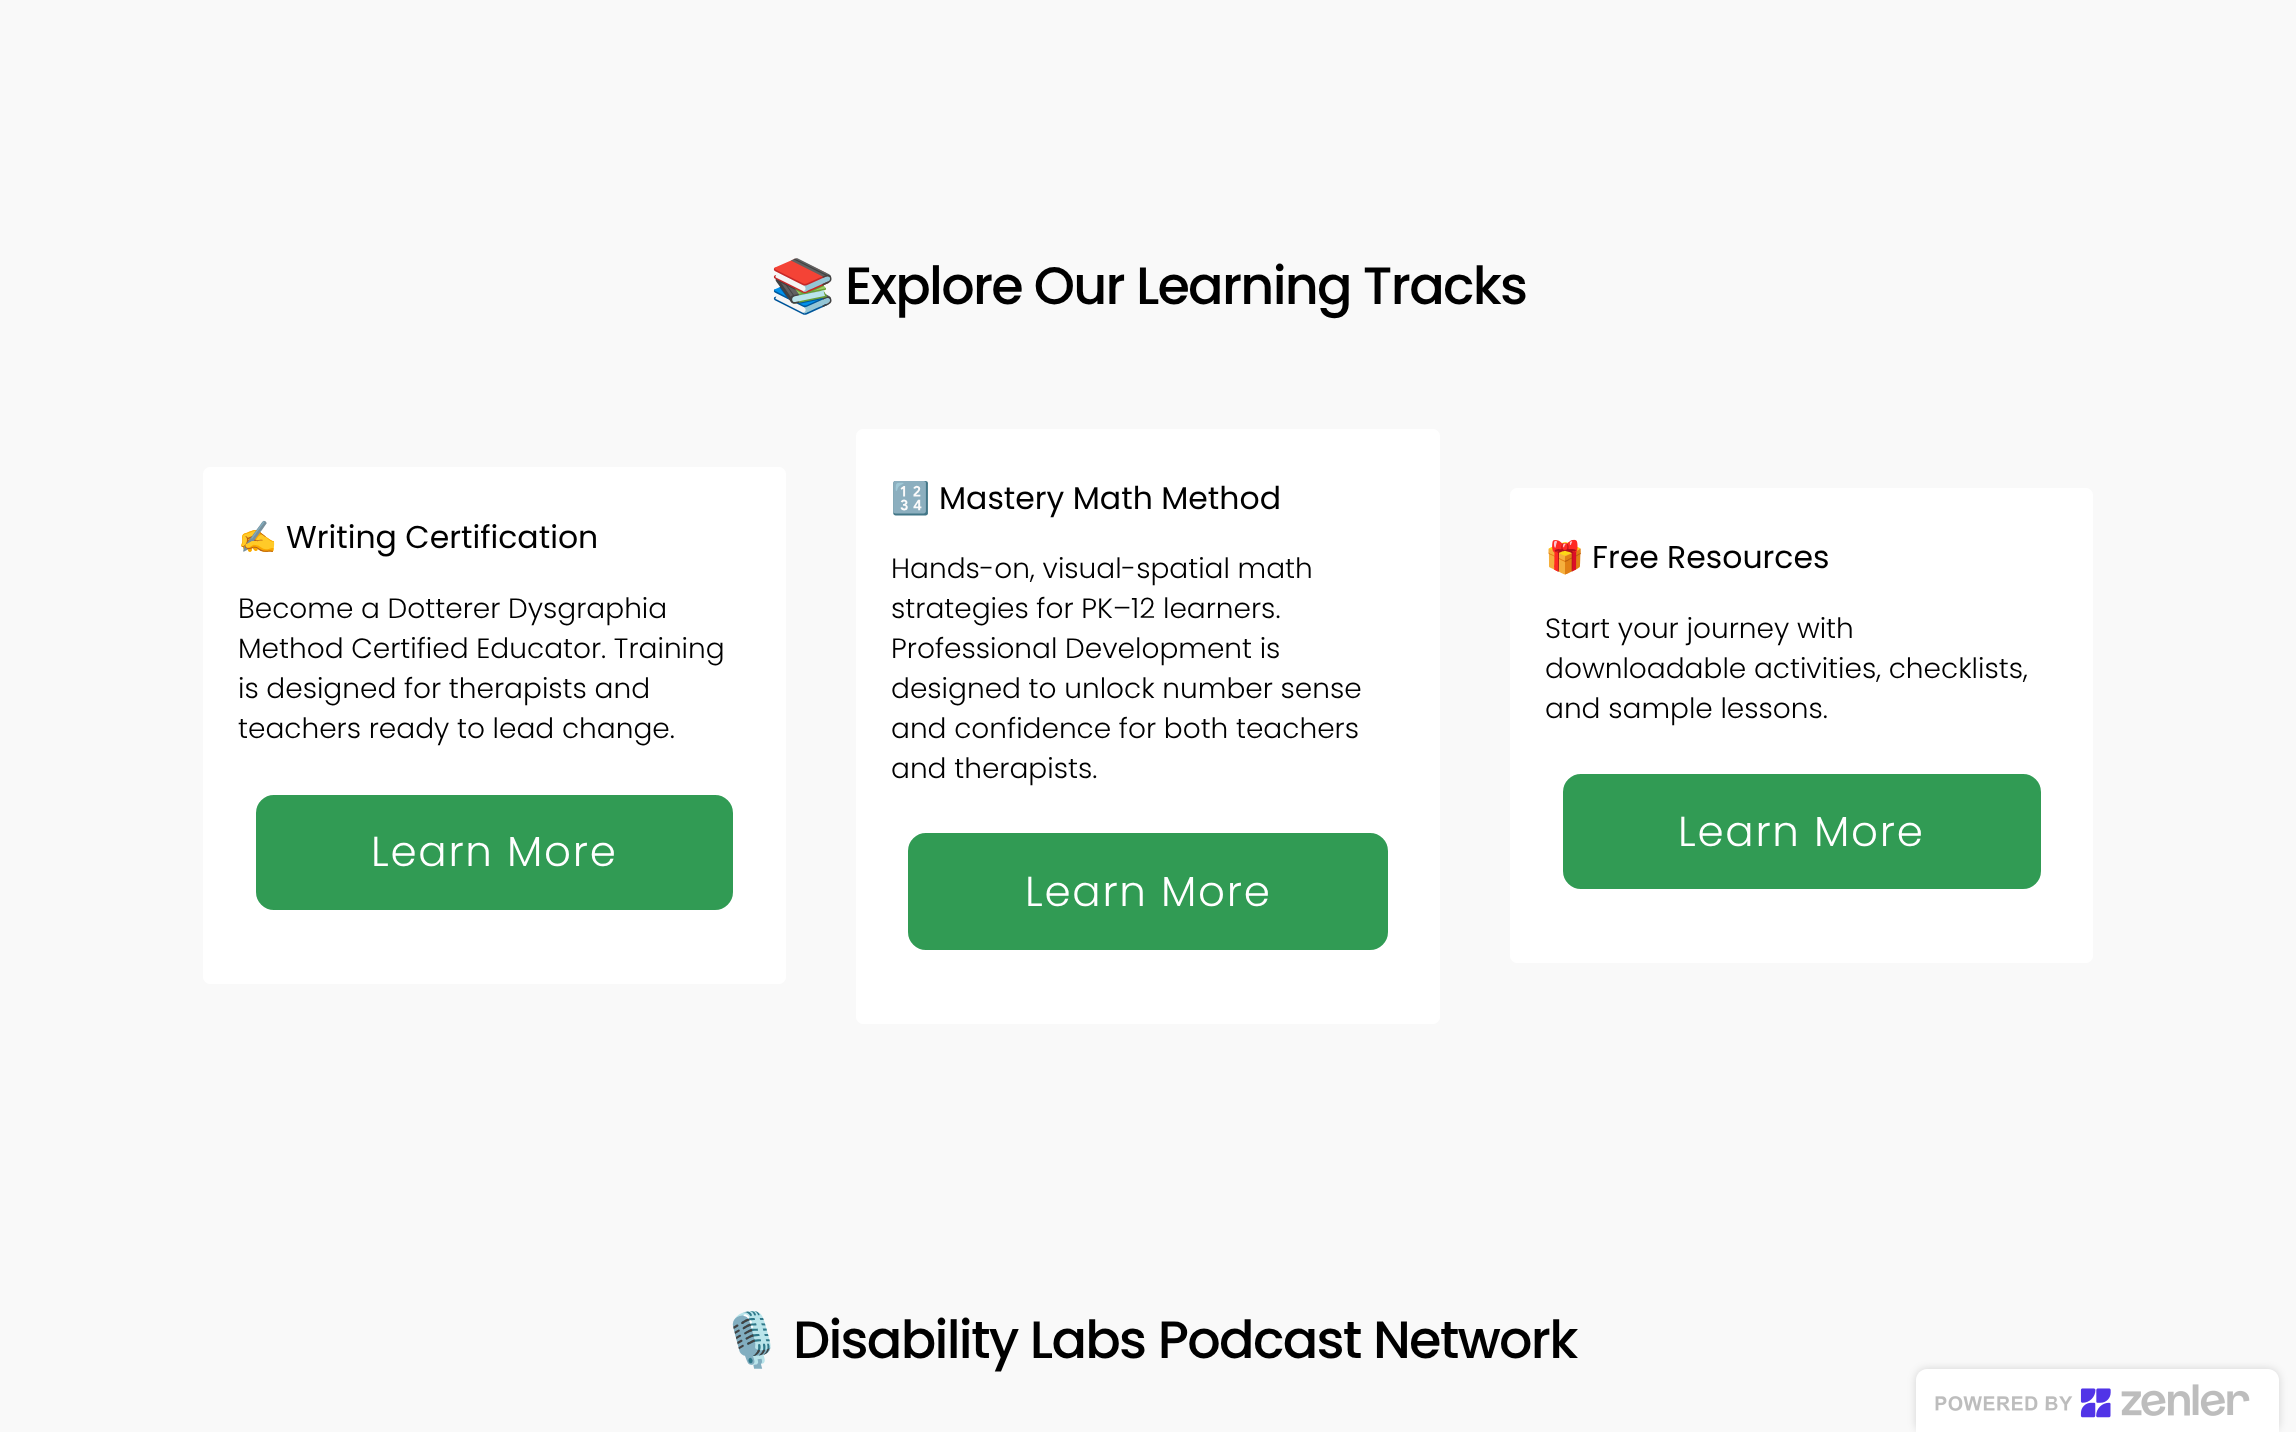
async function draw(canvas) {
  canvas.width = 2296;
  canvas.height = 1432;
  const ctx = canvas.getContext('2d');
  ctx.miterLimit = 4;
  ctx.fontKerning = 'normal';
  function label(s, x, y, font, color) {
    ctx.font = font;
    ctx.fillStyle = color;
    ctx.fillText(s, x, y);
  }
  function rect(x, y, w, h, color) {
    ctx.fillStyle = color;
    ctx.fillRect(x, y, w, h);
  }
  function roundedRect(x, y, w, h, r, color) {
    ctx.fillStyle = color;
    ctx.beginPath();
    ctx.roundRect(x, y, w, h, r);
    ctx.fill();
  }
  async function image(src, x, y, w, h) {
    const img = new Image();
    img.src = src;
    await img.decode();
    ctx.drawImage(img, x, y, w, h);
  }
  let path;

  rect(0, 0, 2296, 1432, '#f9f9f9');
  ctx.letterSpacing = '-1.75px';
  label('📚', 770, 304, '52.5px Noto Color Emoji', '#000');
  label('Explore Our Learning Tracks', 845, 304, '500 52.5px Poppins', '#000');
  roundedRect(203, 467, 583, 517, 7, '#fff');
  ctx.letterSpacing = '0px';
  label('✍️', 238, 548, '31.5px Noto Color Emoji', '#000');
  label('Writing Certification', 286, 548, '31.5px Poppins', '#000');
  label('Become a Dotterer Dysgraphia', 238, 618, '300 28px Poppins', '#000');
  label('Method Certified Educator. Training', 238, 658, '300 28px Poppins', '#000');
  label('is designed for therapists and', 238, 698, '300 28px Poppins', '#000');
  label('teachers ready to lead change.', 238, 738, '300 28px Poppins', '#000');
  ctx.fillStyle = '#319b54';
  ctx.beginPath();
  ctx.roundRect(257, 796, 475, 113, 17);
  ctx.fill();
  ctx.strokeStyle = '#319b54';
  ctx.lineWidth = 2;
  ctx.stroke();
  ctx.letterSpacing = '1.75px';
  label('Learn More', 371, 866, '300 42px Poppins', '#fff');
  roundedRect(856, 429, 584, 595, 7, '#fff');
  ctx.letterSpacing = '0px';
  label('🔢', 891, 509, '31.5px Noto Color Emoji', '#000');
  label('Mastery Math Method', 939, 509, '31.5px Poppins', '#000');
  label('Hands-on, visual-spatial math', 891, 578, '300 28px Poppins', '#000');
  label('strategies for PK–12 learners.', 891, 618, '300 28px Poppins', '#000');
  label('Professional Development is', 891, 658, '300 28px Poppins', '#000');
  label('designed to unlock number sense', 891, 698, '300 28px Poppins', '#000');
  label('and confidence for both teachers', 891, 738, '300 28px Poppins', '#000');
  label('and therapists.', 891, 778, '300 28px Poppins', '#000');
  ctx.fillStyle = '#319b54';
  ctx.beginPath();
  ctx.roundRect(909, 834, 478, 115, 17);
  ctx.fill();
  ctx.stroke();
  ctx.letterSpacing = '1.75px';
  label('Learn More', 1025, 906, '300 42px Poppins', '#fff');
  roundedRect(1510, 488, 583, 475, 7, '#fff');
  ctx.letterSpacing = '0px';
  label('🎁', 1545, 568, '31.5px Noto Color Emoji', '#000');
  label('Free Resources', 1592, 568, '31.5px Poppins', '#000');
  label('Start your journey with', 1545, 638, '300 28px Poppins', '#000');
  label('downloadable activities, checklists,', 1545, 678, '300 28px Poppins', '#000');
  label('and sample lessons.', 1545, 718, '300 28px Poppins', '#000');
  ctx.fillStyle = '#319b54';
  ctx.beginPath();
  ctx.roundRect(1564, 775, 476, 113, 17);
  ctx.fill();
  ctx.stroke();
  ctx.letterSpacing = '1.75px';
  label('Learn More', 1678, 846, '300 42px Poppins', '#fff');
  ctx.letterSpacing = '-1.75px';
  label('🎙️', 719, 1358, '52.5px Noto Color Emoji', '#000');
  ctx.wordSpacing = '0.5px';
  label('Disability Labs Podcast Network', 793, 1358, '500 52.5px Poppins', '#000');
  ctx.fillStyle = '#00000026';
  ctx.filter = 'blur(4.5px)';
  ctx.beginPath();
  ctx.roundRect(1916, 1369, 363, 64, 11);
  ctx.fill();
  ctx.filter = 'none';
  ctx.fillStyle = '#fff';
  path = new Path2D('M1927 1369H2268C2274 1369 2279 1374 2279 1380V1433H1916V1380C1916 1374 1921 1369 1927 1369Z');
  ctx.fill(path);
  await image('assets/img1.png', 1935, 1384, 315, 34);
}

draw(document.querySelector('canvas'));
